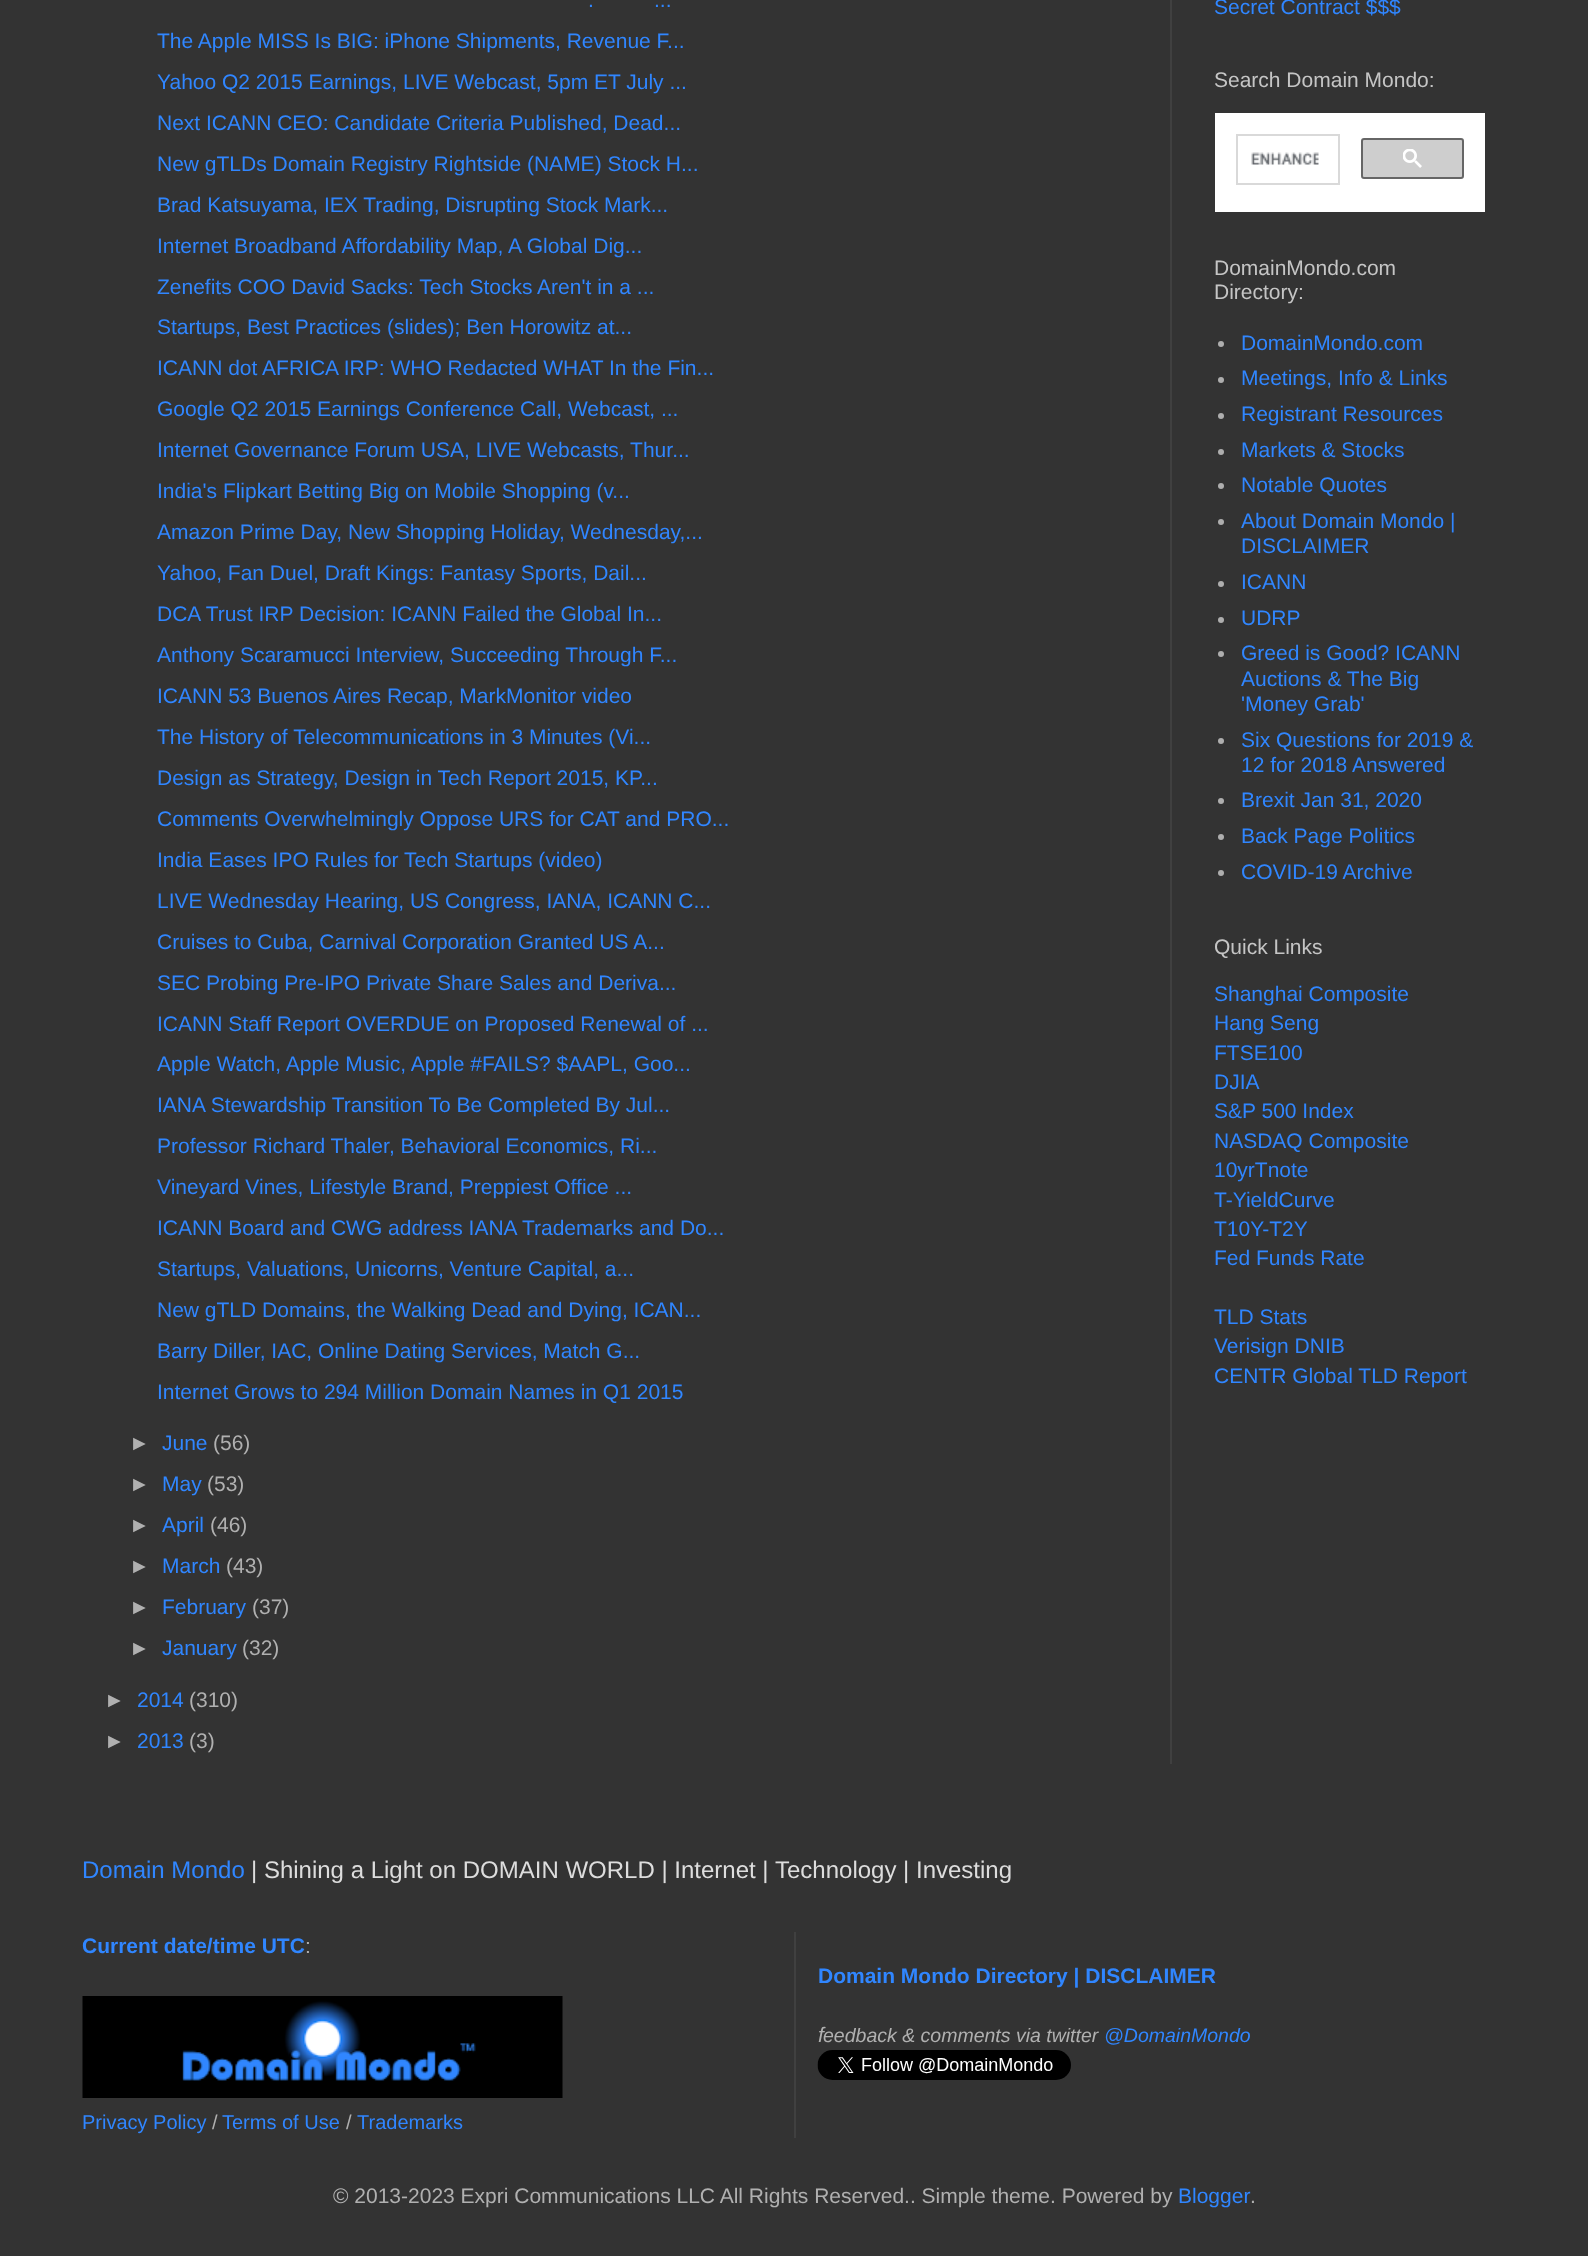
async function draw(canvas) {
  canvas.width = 1588;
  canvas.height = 2256;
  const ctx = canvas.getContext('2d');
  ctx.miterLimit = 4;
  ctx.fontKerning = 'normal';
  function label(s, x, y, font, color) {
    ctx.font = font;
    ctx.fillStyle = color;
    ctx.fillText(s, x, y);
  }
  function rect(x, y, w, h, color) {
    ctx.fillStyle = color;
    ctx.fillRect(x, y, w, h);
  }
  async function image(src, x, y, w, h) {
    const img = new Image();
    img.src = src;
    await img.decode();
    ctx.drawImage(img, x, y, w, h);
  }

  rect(0, 0, 1588, 2256, '#333');
  label('.', 588, 7, '21px Liberation Sans', '#3086ff');
  label('...', 654, 7, '21px Liberation Sans', '#3086ff');
  label('The Apple MISS Is BIG: iPhone Shipments, Revenue F...', 157, 48, '21px Liberation Sans', '#3086ff');
  label('Yahoo Q2 2015 Earnings, LIVE Webcast, 5pm ET July ...', 157, 89, '21px Liberation Sans', '#3086ff');
  label('Next ICANN CEO: Candidate Criteria Published, Dead...', 157, 130, '21px Liberation Sans', '#3086ff');
  label('New gTLDs Domain Registry Rightside (NAME) Stock H...', 157, 171, '21px Liberation Sans', '#3086ff');
  label('Brad Katsuyama, IEX Trading, Disrupting Stock Mark...', 157, 212, '21px Liberation Sans', '#3086ff');
  label('Internet Broadband Affordability Map, A Global Dig...', 157, 253, '21px Liberation Sans', '#3086ff');
  label('Zenefits COO David Sacks: Tech Stocks Aren\'t in a ...', 157, 294, '21px Liberation Sans', '#3086ff');
  label('Startups, Best Practices (slides); Ben Horowitz at...', 157, 334, '21px Liberation Sans', '#3086ff');
  label('ICANN dot AFRICA IRP: WHO Redacted WHAT In the Fin...', 157, 375, '21px Liberation Sans', '#3086ff');
  label('Google Q2 2015 Earnings Conference Call, Webcast, ...', 157, 416, '21px Liberation Sans', '#3086ff');
  label('Internet Governance Forum USA, LIVE Webcasts, Thur...', 157, 457, '21px Liberation Sans', '#3086ff');
  label('India\'s Flipkart Betting Big on Mobile Shopping (v...', 157, 498, '21px Liberation Sans', '#3086ff');
  label('Amazon Prime Day, New Shopping Holiday, Wednesday,...', 157, 539, '21px Liberation Sans', '#3086ff');
  label('Yahoo, Fan Duel, Draft Kings: Fantasy Sports, Dail...', 157, 580, '21px Liberation Sans', '#3086ff');
  label('DCA Trust IRP Decision: ICANN Failed the Global In...', 157, 621, '21px Liberation Sans', '#3086ff');
  label('Anthony Scaramucci Interview, Succeeding Through F...', 157, 662, '21px Liberation Sans', '#3086ff');
  label('ICANN 53 Buenos Aires Recap, MarkMonitor video', 157, 703, '21px Liberation Sans', '#3086ff');
  label('The History of Telecommunications in 3 Minutes (Vi...', 157, 744, '21px Liberation Sans', '#3086ff');
  label('Design as Strategy, Design in Tech Report 2015, KP...', 157, 785, '21px Liberation Sans', '#3086ff');
  label('Comments Overwhelmingly Oppose URS for CAT and PRO...', 157, 826, '21px Liberation Sans', '#3086ff');
  label('India Eases IPO Rules for Tech Startups (video)', 157, 867, '21px Liberation Sans', '#3086ff');
  label('LIVE Wednesday Hearing, US Congress, IANA, ICANN C...', 157, 908, '21px Liberation Sans', '#3086ff');
  label('Cruises to Cuba, Carnival Corporation Granted US A...', 157, 949, '21px Liberation Sans', '#3086ff');
  label('SEC Probing Pre-IPO Private Share Sales and Deriva...', 157, 990, '21px Liberation Sans', '#3086ff');
  label('ICANN Staff Report OVERDUE on Proposed Renewal of ...', 157, 1031, '21px Liberation Sans', '#3086ff');
  label('Apple Watch, Apple Music, Apple #FAILS? $AAPL, Goo...', 157, 1071, '21px Liberation Sans', '#3086ff');
  label('IANA Stewardship Transition To Be Completed By Jul...', 157, 1112, '21px Liberation Sans', '#3086ff');
  label('Professor Richard Thaler, Behavioral Economics, Ri...', 157, 1153, '21px Liberation Sans', '#3086ff');
  label('Vineyard Vines, Lifestyle Brand, Preppiest Office ...', 157, 1194, '21px Liberation Sans', '#3086ff');
  label('ICANN Board and CWG address IANA Trademarks and Do...', 157, 1235, '21px Liberation Sans', '#3086ff');
  label('Startups, Valuations, Unicorns, Venture Capital, a...', 157, 1276, '21px Liberation Sans', '#3086ff');
  label('New gTLD Domains, the Walking Dead and Dying, ICAN...', 157, 1317, '21px Liberation Sans', '#3086ff');
  label('Barry Diller, IAC, Online Dating Services, Match G...', 157, 1358, '21px Liberation Sans', '#3086ff');
  label('Internet Grows to 294 Million Domain Names in Q1 2015', 157, 1399, '21px Liberation Sans', '#3086ff');
  label('►', 129, 1450, '21px Liberation Sans', '#b0b0b0');
  label('June', 162, 1450, '21px Liberation Sans', '#3086ff');
  label('(56)', 213, 1450, '21px Liberation Sans', '#b0b0b0');
  label('►', 129, 1491, '21px Liberation Sans', '#b0b0b0');
  label('May', 162, 1491, '21px Liberation Sans', '#3086ff');
  label('(53)', 207, 1491, '21px Liberation Sans', '#b0b0b0');
  label('►', 129, 1532, '21px Liberation Sans', '#b0b0b0');
  label('April', 162, 1532, '21px Liberation Sans', '#3086ff');
  label('(46)', 210, 1532, '21px Liberation Sans', '#b0b0b0');
  label('►', 129, 1573, '21px Liberation Sans', '#b0b0b0');
  label('March', 162, 1573, '21px Liberation Sans', '#3086ff');
  label('(43)', 226, 1573, '21px Liberation Sans', '#b0b0b0');
  label('►', 129, 1614, '21px Liberation Sans', '#b0b0b0');
  label('February', 162, 1614, '21px Liberation Sans', '#3086ff');
  label('(37)', 252, 1614, '21px Liberation Sans', '#b0b0b0');
  label('►', 129, 1655, '21px Liberation Sans', '#b0b0b0');
  label('January', 162, 1655, '21px Liberation Sans', '#3086ff');
  label('(32)', 242, 1655, '21px Liberation Sans', '#b0b0b0');
  label('►', 104, 1707, '21px Liberation Sans', '#b0b0b0');
  label('2014', 137, 1707, '21px Liberation Sans', '#3086ff');
  label('(310)', 189, 1707, '21px Liberation Sans', '#b0b0b0');
  label('►', 104, 1748, '21px Liberation Sans', '#b0b0b0');
  label('2013', 137, 1748, '21px Liberation Sans', '#3086ff');
  label('(3)', 189, 1748, '21px Liberation Sans', '#b0b0b0');
  label('Secret Contract $$$', 1214, 14, '21px Liberation Sans', '#3086ff');
  label('Search Domain Mondo:', 1214, 87, '21px Liberation Sans', '#c5c5c5');
  rect(1215, 113, 270, 99, '#fff');
  ctx.strokeStyle = '#d9d9d9';
  ctx.lineWidth = 2;
  ctx.strokeRect(1237, 135, 102, 49);
  await image('assets/img1.png', 1251, 152, 68, 13);
  ctx.fillStyle = '#cecece';
  ctx.beginPath();
  ctx.roundRect(1362, 139, 101, 39, 2);
  ctx.fill();
  ctx.strokeStyle = '#666';
  ctx.stroke();
  await image('assets/img2.png', 1403, 149, 19, 19);
  label('DomainMondo.com', 1214, 275, '21px Liberation Sans', '#c5c5c5');
  label('Directory:', 1214, 299, '21px Liberation Sans', '#c5c5c5');
  ctx.fillStyle = '#aeaeae';
  ctx.beginPath();
  ctx.arc(1221, 344, 3, 0, 2 * Math.PI);
  ctx.fill();
  label('DomainMondo.com', 1241, 350, '21px Liberation Sans', '#3086ff');
  ctx.fillStyle = '#aeaeae';
  ctx.beginPath();
  ctx.arc(1221, 380, 3, 0, 2 * Math.PI);
  ctx.fill();
  label('Meetings, Info & Links', 1241, 385, '21px Liberation Sans', '#3086ff');
  ctx.fillStyle = '#aeaeae';
  ctx.beginPath();
  ctx.arc(1221, 416, 3, 0, 2 * Math.PI);
  ctx.fill();
  label('Registrant Resources', 1241, 421, '21px Liberation Sans', '#3086ff');
  ctx.fillStyle = '#aeaeae';
  ctx.beginPath();
  ctx.arc(1221, 452, 3, 0, 2 * Math.PI);
  ctx.fill();
  label('Markets & Stocks', 1241, 457, '21px Liberation Sans', '#3086ff');
  ctx.fillStyle = '#aeaeae';
  ctx.beginPath();
  ctx.arc(1221, 486, 3, 0, 2 * Math.PI);
  ctx.fill();
  label('Notable Quotes', 1241, 492, '21px Liberation Sans', '#3086ff');
  ctx.fillStyle = '#aeaeae';
  ctx.beginPath();
  ctx.arc(1221, 522, 3, 0, 2 * Math.PI);
  ctx.fill();
  label('About Domain Mondo |', 1241, 528, '21px Liberation Sans', '#3086ff');
  label('DISCLAIMER', 1241, 553, '21px Liberation Sans', '#3086ff');
  ctx.fillStyle = '#aeaeae';
  ctx.beginPath();
  ctx.arc(1221, 584, 3, 0, 2 * Math.PI);
  ctx.fill();
  label('ICANN', 1241, 589, '21px Liberation Sans', '#3086ff');
  ctx.fillStyle = '#aeaeae';
  ctx.beginPath();
  ctx.arc(1221, 620, 3, 0, 2 * Math.PI);
  ctx.fill();
  label('UDRP', 1241, 625, '21px Liberation Sans', '#3086ff');
  ctx.fillStyle = '#aeaeae';
  ctx.beginPath();
  ctx.arc(1221, 654, 3, 0, 2 * Math.PI);
  ctx.fill();
  label('Greed is Good? ICANN', 1241, 660, '21px Liberation Sans', '#3086ff');
  label('Auctions & The Big', 1241, 686, '21px Liberation Sans', '#3086ff');
  label('\'Money Grab\'', 1241, 711, '21px Liberation Sans', '#3086ff');
  ctx.fillStyle = '#aeaeae';
  ctx.beginPath();
  ctx.arc(1221, 741, 3, 0, 2 * Math.PI);
  ctx.fill();
  label('Six Questions for 2019 &', 1241, 747, '21px Liberation Sans', '#3086ff');
  label('12 for 2018 Answered', 1241, 772, '21px Liberation Sans', '#3086ff');
  ctx.fillStyle = '#aeaeae';
  ctx.beginPath();
  ctx.arc(1221, 801, 3, 0, 2 * Math.PI);
  ctx.fill();
  label('Brexit Jan 31, 2020', 1241, 807, '21px Liberation Sans', '#3086ff');
  ctx.fillStyle = '#aeaeae';
  ctx.beginPath();
  ctx.arc(1221, 837, 3, 0, 2 * Math.PI);
  ctx.fill();
  label('Back Page Politics', 1241, 843, '21px Liberation Sans', '#3086ff');
  ctx.fillStyle = '#aeaeae';
  ctx.beginPath();
  ctx.arc(1221, 873, 3, 0, 2 * Math.PI);
  ctx.fill();
  label('COVID-19 Archive', 1241, 879, '21px Liberation Sans', '#3086ff');
  label('Quick Links', 1214, 954, '21px Liberation Sans', '#c5c5c5');
  label('Shanghai Composite', 1214, 1001, '21px Liberation Sans', '#3086ff');
  label('Hang Seng', 1214, 1030, '21px Liberation Sans', '#3086ff');
  label('FTSE100', 1214, 1060, '21px Liberation Sans', '#3086ff');
  label('DJIA', 1214, 1089, '21px Liberation Sans', '#3086ff');
  label('S&P 500 Index', 1214, 1118, '21px Liberation Sans', '#3086ff');
  label('NASDAQ Composite', 1214, 1148, '21px Liberation Sans', '#3086ff');
  label('10yrTnote', 1214, 1177, '21px Liberation Sans', '#3086ff');
  label('T-YieldCurve', 1214, 1207, '21px Liberation Sans', '#3086ff');
  label('T10Y-T2Y', 1214, 1236, '21px Liberation Sans', '#3086ff');
  label('Fed Funds Rate', 1214, 1265, '21px Liberation Sans', '#3086ff');
  label('TLD Stats', 1214, 1324, '21px Liberation Sans', '#3086ff');
  label('Verisign DNIB', 1214, 1353, '21px Liberation Sans', '#3086ff');
  label('CENTR Global TLD Report', 1214, 1383, '21px Liberation Sans', '#3086ff');
  rect(1170, 0, 2, 1764, '#404040');
  label('Domain Mondo', 82, 1878, '24px Liberation Sans', '#3086ff');
  label('| Shining a Light on DOMAIN WORLD | Internet |', 251, 1878, '24px Liberation Sans', '#ddd');
  label('Technology | Investing', 775, 1878, '24px Liberation Sans', '#ddd');
  label('Current date/time UTC', 82, 1953, 'bold 21px Liberation Sans', '#3086ff');
  label(':', 305, 1953, '21px Liberation Sans', '#b0b0b0');
  await image('assets/img3.png', 82, 1996, 481, 102);
  label('Privacy Policy', 82, 2129, '20px Liberation Sans', '#3086ff');
  label('/', 212, 2129, '20px Liberation Sans', '#b0b0b0');
  label('Terms of Use', 222, 2129, '20px Liberation Sans', '#3086ff');
  label('/', 346, 2129, '20px Liberation Sans', '#b0b0b0');
  label('Trademarks', 357, 2129, '20px Liberation Sans', '#3086ff');
  rect(794, 1932, 2, 206, '#404040');
  label('Domain Mondo Directory | DISCLAIMER', 818, 1983, 'bold 21px Liberation Sans', '#3086ff');
  label('f', 818, 2042, 'italic 21px Liberation Sans', '#b0b0b0');
  label('eedback & comments via twitter', 823, 2042, 'italic 19.5px Liberation Sans', '#b0b0b0');
  label('@DomainMondo', 1104, 2042, 'italic 19.5px Liberation Sans', '#3086ff');
  await image('assets/img4.png', 817, 2050, 254, 30);
  label('© 2013-2023 Expri Communications LLC All Rights Reserved.. Simple theme. Powered by', 333, 2203, '21px Liberation Sans', '#b0b0b0');
  label('Blogger', 1178, 2203, '21px Liberation Sans', '#3086ff');
  label('.', 1250, 2203, '21px Liberation Sans', '#b0b0b0');
}

draw(document.querySelector('canvas'));
